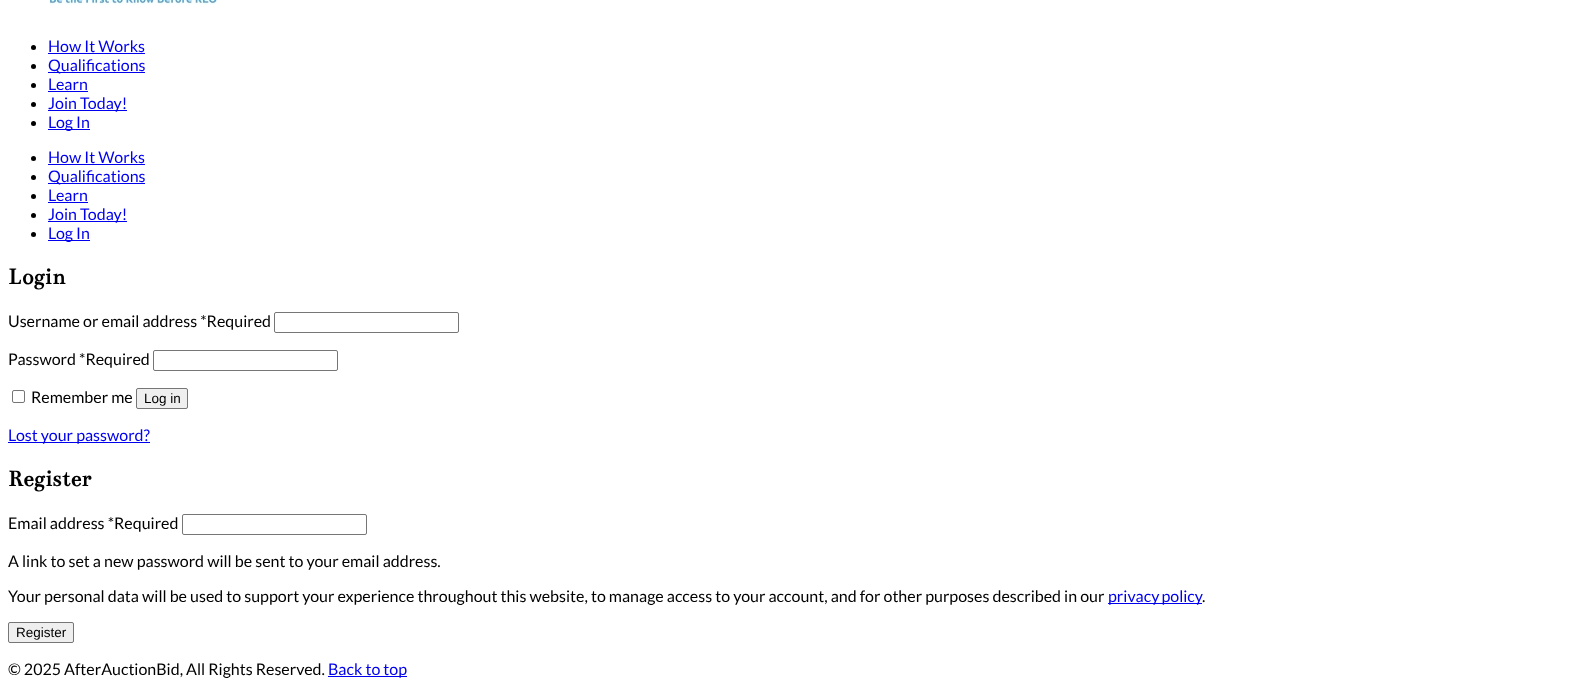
async function draw(canvas) {
  canvas.width = 1571;
  canvas.height = 694;
  const ctx = canvas.getContext('2d');
  ctx.miterLimit = 4;
  ctx.fontKerning = 'normal';
  function label(s, x, y, font, color) {
    ctx.font = font;
    ctx.fillStyle = color;
    ctx.fillText(s, x, y);
  }
  function rect(x, y, w, h, color) {
    ctx.fillStyle = color;
    ctx.fillRect(x, y, w, h);
  }
  async function image(src, x, y, w, h) {
    const img = new Image();
    img.src = src;
    await img.decode();
    ctx.drawImage(img, x, y, w, h);
  }

  rect(0, 0, 1571, 694, '#fff');
  await image('assets/img1.png', 49, 0, 169, 5);
  ctx.fillStyle = '#000';
  ctx.beginPath();
  ctx.arc(33.5, 47.5, 2.5, 0, 2 * Math.PI);
  ctx.fill();
  label('How It Works', 48, 52, '16px Lato', '#00e');
  rect(48, 53, 97, 1, '#00e');
  ctx.fillStyle = '#000';
  ctx.beginPath();
  ctx.arc(33.5, 66.5, 2.5, 0, 2 * Math.PI);
  ctx.fill();
  rect(48, 72, 97, 1, '#00e');
  label('Qualifications', 48, 71, '16px Lato', '#00e');
  ctx.fillStyle = '#000';
  ctx.beginPath();
  ctx.arc(33.5, 85.5, 2.5, 0, 2 * Math.PI);
  ctx.fill();
  label('Learn', 48, 90, '16px Lato', '#00e');
  rect(48, 91, 40, 1, '#00e');
  ctx.fillStyle = '#000';
  ctx.beginPath();
  ctx.arc(33.5, 104.5, 2.5, 0, 2 * Math.PI);
  ctx.fill();
  rect(48, 110, 79, 1, '#00e');
  label('Join Today!', 48, 109, '16px Lato', '#00e');
  ctx.fillStyle = '#000';
  ctx.beginPath();
  ctx.arc(33.5, 123.5, 2.5, 0, 2 * Math.PI);
  ctx.fill();
  rect(48, 129, 42, 1, '#00e');
  label('Log In', 48, 128, '16px Lato', '#00e');
  ctx.fillStyle = '#000';
  ctx.beginPath();
  ctx.arc(33.5, 158.5, 2.5, 0, 2 * Math.PI);
  ctx.fill();
  label('How It Works', 48, 163, '16px Lato', '#00e');
  rect(48, 164, 97, 1, '#00e');
  ctx.fillStyle = '#000';
  ctx.beginPath();
  ctx.arc(33.5, 177.5, 2.5, 0, 2 * Math.PI);
  ctx.fill();
  rect(48, 183, 97, 1, '#00e');
  label('Qualifications', 48, 182, '16px Lato', '#00e');
  ctx.fillStyle = '#000';
  ctx.beginPath();
  ctx.arc(33.5, 196.5, 2.5, 0, 2 * Math.PI);
  ctx.fill();
  label('Learn', 48, 201, '16px Lato', '#00e');
  rect(48, 202, 40, 1, '#00e');
  ctx.fillStyle = '#000';
  ctx.beginPath();
  ctx.arc(33.5, 215.5, 2.5, 0, 2 * Math.PI);
  ctx.fill();
  rect(48, 221, 79, 1, '#00e');
  label('Join Today!', 48, 220, '16px Lato', '#00e');
  ctx.fillStyle = '#000';
  ctx.beginPath();
  ctx.arc(33.5, 234.5, 2.5, 0, 2 * Math.PI);
  ctx.fill();
  rect(48, 240, 42, 1, '#00e');
  label('Log In', 48, 239, '16px Lato', '#00e');
  label('Login', 8, 284, 'bold 24px Bentham', '#000');
  label('Username or email address *Required', 8, 327, '16px Lato', '#000');
  ctx.beginPath();
  ctx.roundRect(274.5, 312.5, 184, 20, 1.5);
  ctx.strokeStyle = '#767676';
  ctx.stroke();
  label('Password *Required', 8, 365, '16px Lato', '#000');
  ctx.beginPath();
  ctx.roundRect(153.5, 350.5, 184, 20, 1.5);
  ctx.stroke();
  ctx.beginPath();
  ctx.roundRect(12.5, 390.5, 12, 12, 1.5);
  ctx.stroke();
  label('Remember me', 31, 403, '16px Lato', '#000');
  ctx.fillStyle = '#efefef';
  ctx.beginPath();
  ctx.roundRect(136.5, 388.5, 51, 20, 1.5);
  ctx.fill();
  ctx.stroke();
  label('Log in', 144, 403, '13.5px Liberation Sans', '#000');
  rect(8, 442, 142, 1, '#00e');
  label('Lost your password?', 8, 441, '16px Lato', '#00e');
  label('Register', 8, 486, 'bold 24px Bentham', '#000');
  label('Email address *Required', 8, 529, '16px Lato', '#000');
  ctx.beginPath();
  ctx.roundRect(182.5, 514.5, 184, 20, 1.5);
  ctx.stroke();
  label('A link to set a new password will be sent to your email address.', 8, 567, '16px Lato', '#000');
  label('Your personal data will be used to support your experience throughout this website, to manage access to your account, and for other purposes described in our', 8, 602, '16px Lato', '#000');
  rect(1108, 603, 94, 1, '#00e');
  ctx.wordSpacing = '-1px';
  label('privacy policy', 1108, 602, '16px Lato', '#00e');
  ctx.wordSpacing = '0px';
  label('.', 1202, 602, '16px Lato', '#000');
  ctx.fillStyle = '#efefef';
  ctx.beginPath();
  ctx.roundRect(8.5, 622.5, 65, 20, 1.5);
  ctx.fill();
  ctx.stroke();
  label('Register', 16, 637, '13.5px Liberation Sans', '#000');
  label('© 2025 AfterAuctionBid, All Rights Reserved.', 8, 675, '16px Lato', '#000');
  rect(328, 676, 79, 1, '#00e');
  label('Back to top', 328, 675, '16px Lato', '#00e');
}

draw(document.querySelector('canvas'));
